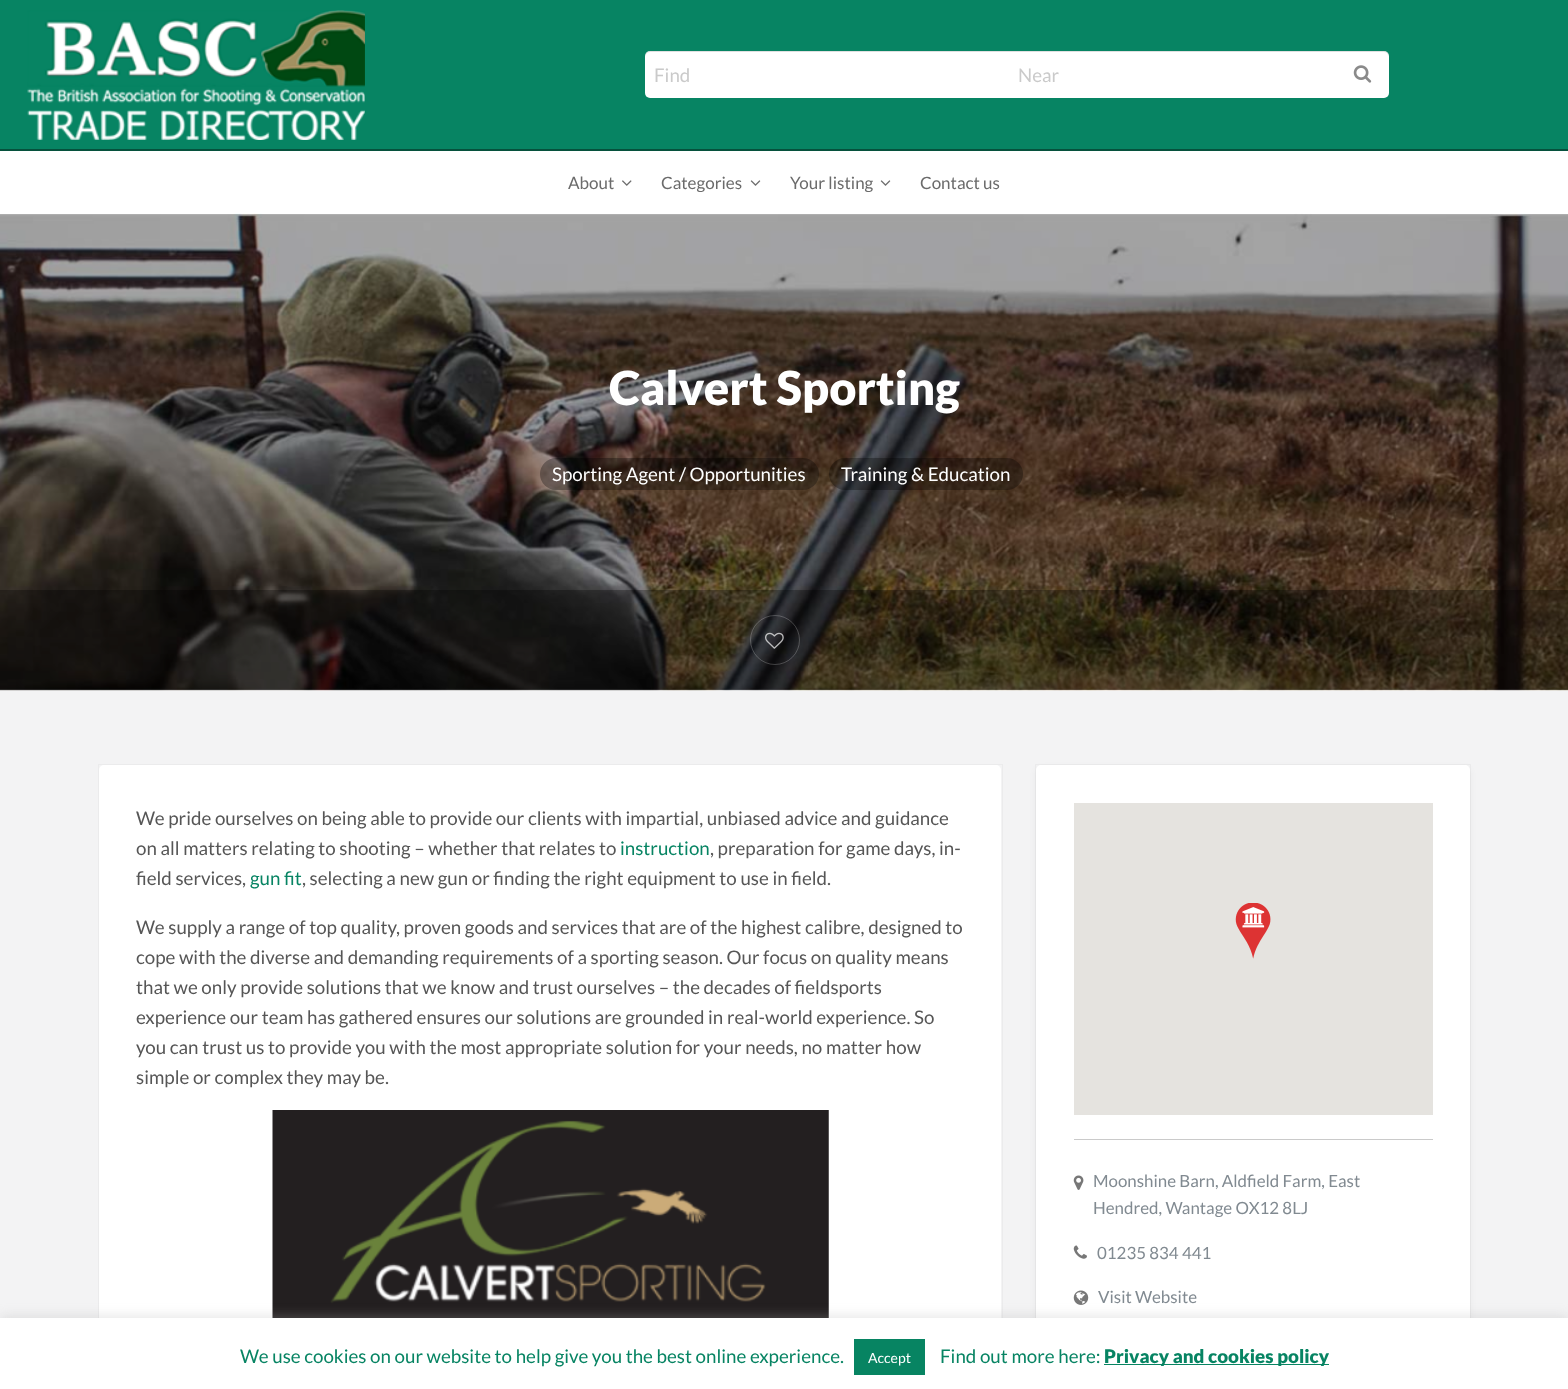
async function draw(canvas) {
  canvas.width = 1568;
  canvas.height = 1389;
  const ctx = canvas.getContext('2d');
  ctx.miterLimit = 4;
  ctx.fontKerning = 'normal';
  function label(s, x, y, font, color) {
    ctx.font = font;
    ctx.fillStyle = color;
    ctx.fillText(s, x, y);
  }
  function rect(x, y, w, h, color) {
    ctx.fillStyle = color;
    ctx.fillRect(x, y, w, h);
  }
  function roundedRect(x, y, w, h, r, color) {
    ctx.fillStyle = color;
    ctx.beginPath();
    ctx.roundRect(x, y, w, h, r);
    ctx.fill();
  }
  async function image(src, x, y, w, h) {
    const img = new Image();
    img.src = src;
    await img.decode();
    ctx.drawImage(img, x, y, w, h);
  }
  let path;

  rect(0, 0, 1568, 1389, '#f3f3f4');
  rect(0, 0, 1568, 149, '#078463');
  rect(0, 149, 1568, 2, '#06513d');
  await image('assets/img1.png', 27, 10, 338, 130);
  ctx.fillStyle = '#fff';
  ctx.beginPath();
  ctx.roundRect(645, 51, 364, 47, [5, 0, 0, 5]);
  ctx.fill();
  ctx.fillStyle = '#0000001f';
  path = new Path2D('M650 52H1009V51H650C646 51 645 55 645 58C645 55 647 52 650 52Z');
  ctx.fill(path);
  label('Find', 654, 82, '18.75px Lato', '#cacaca');
  ctx.fillStyle = '#fff';
  ctx.beginPath();
  ctx.roundRect(1009, 51, 380, 47, [0, 5, 5, 0]);
  ctx.fill();
  ctx.fillStyle = '#0000001f';
  path = new Path2D('M1009 52H1384C1387 52 1389 55 1389 58C1389 55 1388 51 1384 51H1009Z');
  ctx.fill(path);
  label('Near', 1018, 82, '18.75px Lato', '#cacaca');
  await image('assets/img2.png', 1353, 65, 19, 18);
  rect(0, 151, 1568, 63, '#fff');
  label('About', 568, 189, '17px Lato', '#6b6b6b');
  await image('assets/img3.png', 622, 180, 10, 6);
  label('Categories', 661, 189, '17px Lato', '#6b6b6b');
  await image('assets/img4.png', 750, 180, 11, 6);
  label('Your listing', 790, 189, '17px Lato', '#6b6b6b');
  await image('assets/img4.png', 880, 180, 11, 6);
  label('Contact us', 920, 189, '17px Lato', '#6b6b6b');
  await image('assets/img5.png', 0, 213, 1568, 478);
  label('Calvert Sporting', 609, 405, '900 47px Lato', '#fff');
  roundedRect(540, 458, 279, 32, 16, '#0000004d');
  label('Sporting Agent / Opportunities', 552, 481, '18.75px Lato', '#fff');
  roundedRect(829, 458, 194, 32, 16, '#0000004d');
  label('Training & Education', 841, 481, '18.75px Lato', '#fff');
  rect(0, 590, 1568, 100, '#0000004d');
  ctx.beginPath();
  ctx.arc(775, 640, 24.5, 0, 2 * Math.PI);
  ctx.strokeStyle = '#ffffff36';
  ctx.stroke();
  await image('assets/img6.png', 765, 632, 19, 17);
  ctx.strokeStyle = '#00000008';
  ctx.strokeRect(98.5, 764.5, 904, 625);
  roundedRect(99, 765, 902, 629, 5, '#fff');
  label('We pride ourselves on being able to provide our clients with impartial, unbiased advice and guidance', 136, 825, '18.75px Lato', '#565656');
  label('on all matters relating to shooting – whether that relates to', 136, 855, '18.75px Lato', '#565656');
  label('instruction', 620, 855, '18.75px Lato', '#078463');
  label(', preparation for game days, in-', 710, 855, '18.75px Lato', '#565656');
  label('field services,', 136, 885, '18.75px Lato', '#565656');
  label('gun fit', 250, 885, '18.75px Lato', '#078463');
  label(', selecting a new gun or finding the right equipment to use in field.', 302, 885, '18.75px Lato', '#565656');
  label('We supply a range of top quality, proven goods and services that are of the highest calibre, designed to', 136, 934, '18.75px Lato', '#565656');
  label('cope with the diverse and demanding requirements of a sporting season. Our focus on quality means', 136, 964, '18.75px Lato', '#565656');
  label('that we only provide solutions that we know and trust ourselves – the decades of fieldsports', 136, 994, '18.75px Lato', '#565656');
  label('experience our team has gathered ensures our solutions are grounded in real-world experience. So', 136, 1024, '18.75px Lato', '#565656');
  label('you can trust us to provide you with the most appropriate solution for your needs, no matter how', 136, 1054, '18.75px Lato', '#565656');
  label('simple or complex they may be.', 136, 1084, '18.75px Lato', '#565656');
  await image('assets/img7.png', 272, 1110, 557, 208);
  ctx.fillStyle = '#0000000d';
  ctx.filter = 'blur(3px)';
  ctx.beginPath();
  ctx.roundRect(1036, 768, 434, 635, 5);
  ctx.fill();
  ctx.filter = 'none';
  ctx.strokeRect(1035.5, 764.5, 435, 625);
  roundedRect(1036, 765, 434, 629, 5, '#fff');
  rect(1074, 803, 359, 312, '#e5e3df');
  await image('assets/img8.png', 1235, 903, 36, 56);
  rect(1074, 1139, 359, 1, '#cacaca');
  await image('assets/img9.png', 1073, 1175, 11, 15);
  label('Moonshine Barn, Aldfield Farm, East', 1093, 1187, '16.9px Lato', '#818a91');
  label('Hendred, Wantage OX12 8LJ', 1093, 1214, '16.9px Lato', '#818a91');
  await image('assets/img10.png', 1073, 1245, 14, 14);
  label('01235 834 441', 1097, 1259, '16.9px Lato', '#818a91');
  await image('assets/img11.png', 1073, 1290, 16, 15);
  label('Visit Website', 1098, 1303, '16.9px Lato', '#818a91');
  ctx.fillStyle = '#acabab4d';
  ctx.filter = 'blur(6px)';
  ctx.beginPath();
  ctx.rect(0, 1316, 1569, 73);
  ctx.fill();
  ctx.filter = 'none';
  rect(0, 1318, 1568, 71, '#fff');
  label('We use cookies on our website to help give you the best online experience.', 240, 1363, '18.75px Lato', '#078463');
  rect(854, 1339, 71, 36, '#078462');
  label('Accept', 868, 1363, '14px Lato', '#fff');
  label('Find out more here:', 940, 1363, '18.75px Lato', '#078463');
  rect(1104, 1364, 225, 1, '#078462');
  label('Privacy and cookies policy', 1104, 1363, '900 18.75px Lato', '#078463');
}

draw(document.querySelector('canvas'));
